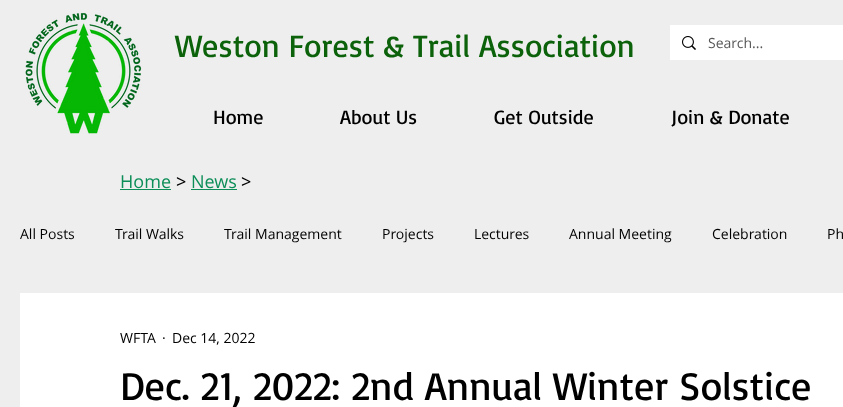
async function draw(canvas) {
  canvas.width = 843;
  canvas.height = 407;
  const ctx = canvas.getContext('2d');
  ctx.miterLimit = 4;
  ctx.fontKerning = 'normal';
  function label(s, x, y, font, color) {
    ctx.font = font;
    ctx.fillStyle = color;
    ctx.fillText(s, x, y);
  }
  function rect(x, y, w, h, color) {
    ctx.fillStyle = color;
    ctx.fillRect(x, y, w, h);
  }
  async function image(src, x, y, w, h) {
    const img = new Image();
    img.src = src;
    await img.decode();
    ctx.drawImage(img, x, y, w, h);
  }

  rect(0, 0, 843, 407, '#eee');
  await image('assets/img1.png', 25, 13, 117, 121);
  label('Weston Forest & Trail Association', 175, 57, '32px Basic', '#0c620a');
  rect(670, 25, 173, 35, '#fff');
  await image('assets/img2.png', 682, 36, 14, 14);
  label('Search...', 708, 48, '14px Open Sans', '#595858');
  label('Home', 213, 124, '20px Basic', '#000');
  label('About Us', 340, 124, '20px Basic', '#000');
  label('Get Outside', 494, 124, '20px Basic', '#000');
  label('Join & Donate', 671, 124, '20px Basic', '#000');
  label('Home', 120, 188, '18px Open Sans', '#0d8e58');
  rect(120, 189, 51, 1, '#0d8e58');
  label('>', 176, 188, '18px Open Sans', '#000');
  label('News', 191, 188, '18px Open Sans', '#0d8e58');
  rect(191, 189, 46, 1, '#0d8e58');
  label('>', 241, 188, '18px Open Sans', '#000');
  label('All Posts', 20, 239, '14px Open Sans', '#000');
  label('Trail Walks', 115, 239, '14px Open Sans', '#000');
  label('Trail Management', 224, 239, '14px Open Sans', '#000');
  label('Projects', 382, 239, '14px Open Sans', '#000');
  label('Lectures', 474, 239, '14px Open Sans', '#000');
  label('Annual Meeting', 569, 239, '14px Open Sans', '#000');
  label('Celebration', 712, 239, '14px Open Sans', '#000');
  label('Ph', 827, 239, '14px Open Sans', '#000');
  rect(20, 293, 823, 114, '#fff');
  label('WFTA', 120, 343, '14px Open Sans', '#000');
  label('·', 162, 343, '14px Open Sans', '#000');
  label('Dec 14, 2022', 172, 343, '14px Open Sans', '#000');
  label('Dec. 21, 2022: 2nd Annual Winter Solstice', 120, 400, '40px Basic', '#000');
}

draw(document.querySelector('canvas'));
